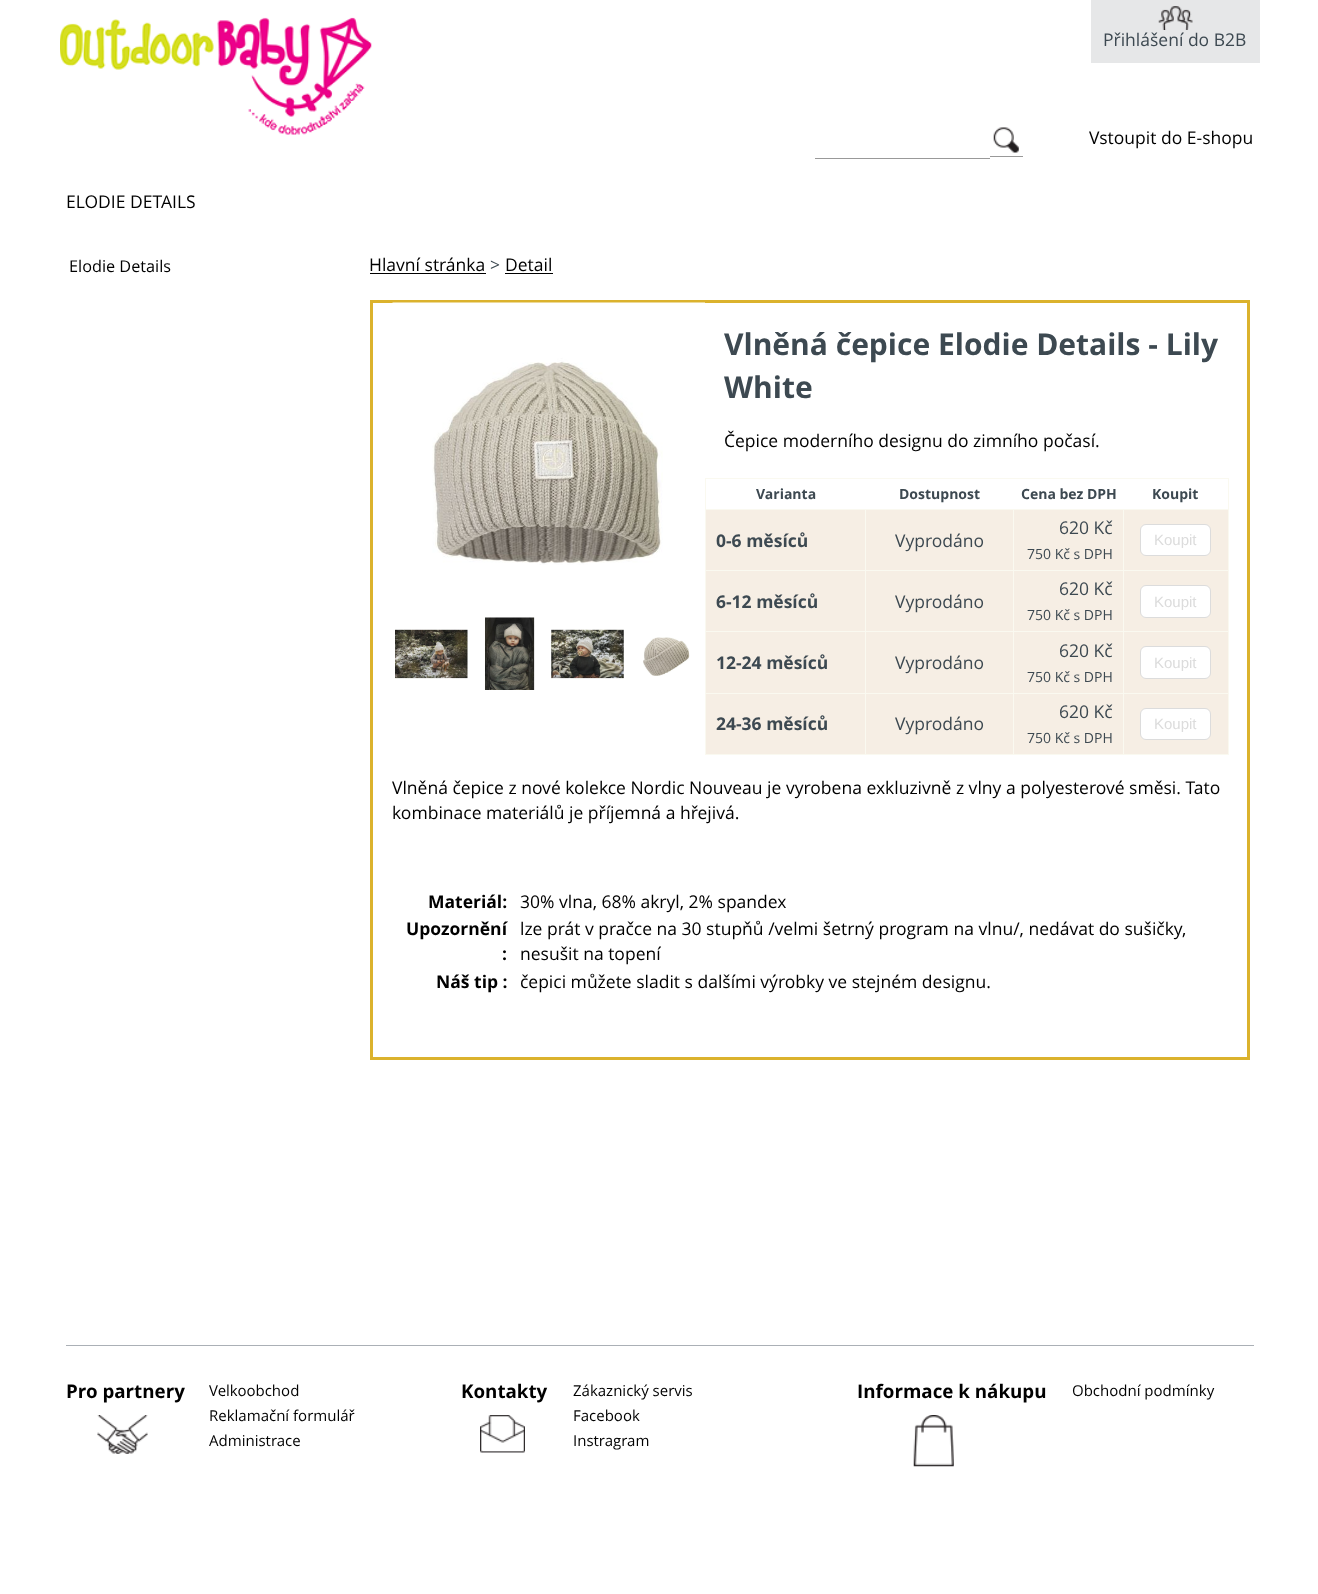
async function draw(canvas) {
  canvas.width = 1318;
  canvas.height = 1594;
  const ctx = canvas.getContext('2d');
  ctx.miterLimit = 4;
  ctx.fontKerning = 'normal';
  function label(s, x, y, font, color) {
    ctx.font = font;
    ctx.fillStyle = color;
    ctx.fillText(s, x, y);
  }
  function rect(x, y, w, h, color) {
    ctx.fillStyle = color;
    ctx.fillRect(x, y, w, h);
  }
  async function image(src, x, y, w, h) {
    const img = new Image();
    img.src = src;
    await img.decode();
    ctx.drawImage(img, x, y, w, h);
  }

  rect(0, 0, 1318, 1594, '#fff');
  await image('assets/img1.png', 60, 17, 312, 118);
  rect(1091, 0, 169, 63, '#e6e7e8');
  await image('assets/img2.png', 1158, 6, 35, 24);
  label('Přihlášení do B2B', 1103, 46, '17.5px Open Sans', '#3d4951');
  rect(990, 156, 33, 1, '#999');
  await image('assets/img3.png', 993, 127, 26, 26);
  rect(815, 158, 175, 1, '#999');
  label('Vstoupit do E-shopu', 1089, 144, '17.5px Open Sans', '#000');
  label('ELODIE DETAILS', 66, 208, '17.5px Open Sans', '#000');
  label('Elodie Details', 69, 272, '16.25px Open Sans', '#000');
  label('Hlavní stránka', 369, 271, '17.5px Open Sans', '#000');
  rect(370, 273, 116, 1, '#000');
  label('>', 490, 271, '17.5px Open Sans', '#3d4951');
  label('Detail', 505, 271, '17.5px Open Sans', '#000');
  rect(505, 273, 48, 1, '#000');
  ctx.strokeStyle = '#dbb22d';
  ctx.lineWidth = 3;
  ctx.strokeRect(371.5, 301.5, 877, 757);
  await image('assets/img4.png', 392, 302, 313, 263);
  await image('assets/img5.png', 395, 629, 73, 50);
  await image('assets/img6.png', 484, 617, 51, 73);
  await image('assets/img7.png', 551, 629, 73, 50);
  await image('assets/img8.png', 643, 637, 47, 39);
  label('Vlněná čepice Elodie Details - Lily', 724, 355, 'bold 30px Open Sans', '#3d4951');
  label('White', 724, 398, 'bold 30px Open Sans', '#3d4951');
  label('Čepice moderního designu do zimního počasí.', 724, 447, '17.5px Open Sans', '#000');
  rect(706, 510, 522, 244, '#f6eee4');
  rect(705, 478, 524, 1, '#faf9f0');
  rect(1228, 478, 1, 277, '#faf9f0');
  rect(705, 754, 524, 1, '#faf9f0');
  rect(705, 478, 1, 277, '#faf9f0');
  label('Varianta', 756, 499, 'bold 14px Open Sans', '#3d4951');
  label('Dostupnost', 899, 499, 'bold 14px Open Sans', '#3d4951');
  label('Cena bez DPH', 1021, 499, 'bold 14px Open Sans', '#3d4951');
  label('Koupit', 1152, 499, 'bold 14px Open Sans', '#3d4951');
  rect(1123, 509, 106, 1, '#faf9f0');
  rect(1123, 570, 106, 1, '#faf9f0');
  rect(1123, 631, 106, 1, '#faf9f0');
  rect(1123, 693, 106, 1, '#faf9f0');
  rect(1123, 693, 1, 62, '#faf9f0');
  rect(1013, 693, 111, 1, '#faf9f0');
  rect(1123, 631, 1, 63, '#faf9f0');
  rect(1013, 631, 111, 1, '#faf9f0');
  rect(1123, 570, 1, 63, '#faf9f0');
  rect(1013, 570, 111, 1, '#faf9f0');
  rect(1123, 509, 1, 62, '#faf9f0');
  rect(1013, 509, 111, 1, '#faf9f0');
  rect(1013, 693, 1, 62, '#faf9f0');
  rect(865, 693, 149, 1, '#faf9f0');
  rect(1013, 631, 1, 63, '#faf9f0');
  rect(865, 631, 149, 1, '#faf9f0');
  rect(1013, 570, 1, 63, '#faf9f0');
  rect(865, 570, 149, 1, '#faf9f0');
  rect(1013, 509, 1, 62, '#faf9f0');
  rect(865, 509, 149, 1, '#faf9f0');
  rect(865, 693, 1, 62, '#faf9f0');
  rect(705, 693, 161, 1, '#faf9f0');
  rect(865, 631, 1, 63, '#faf9f0');
  rect(705, 631, 161, 1, '#faf9f0');
  rect(865, 570, 1, 63, '#faf9f0');
  rect(705, 570, 161, 1, '#faf9f0');
  rect(865, 509, 1, 62, '#faf9f0');
  rect(705, 509, 161, 1, '#faf9f0');
  label('0-6 měsíců', 716, 547, 'bold 17.5px Open Sans', '#3d4951');
  label('Vyprodáno', 895, 547, '17.5px Open Sans', '#3d4951');
  label('620 Kč', 1059, 534, '17.5px Open Sans', '#3d4951');
  label('750 Kč s DPH', 1027, 559, '14px Open Sans', '#3d4951');
  ctx.fillStyle = '#fff';
  ctx.beginPath();
  ctx.roundRect(1140.5, 524.5, 70, 31, 5.5);
  ctx.fill();
  ctx.strokeStyle = '#dcdcdc';
  ctx.lineWidth = 1;
  ctx.stroke();
  label('Koupit', 1154, 545, '15px Liberation Sans', '#dcdcdc');
  label('6-12 měsíců', 716, 608, 'bold 17.5px Open Sans', '#3d4951');
  label('Vyprodáno', 895, 608, '17.5px Open Sans', '#3d4951');
  label('620 Kč', 1059, 595, '17.5px Open Sans', '#3d4951');
  label('750 Kč s DPH', 1027, 620, '14px Open Sans', '#3d4951');
  ctx.fillStyle = '#fff';
  ctx.beginPath();
  ctx.roundRect(1140.5, 585.5, 70, 32, 5.5);
  ctx.fill();
  ctx.stroke();
  label('Koupit', 1154, 607, '15px Liberation Sans', '#dcdcdc');
  label('12-24 měsíců', 716, 669, 'bold 17.5px Open Sans', '#3d4951');
  label('Vyprodáno', 895, 669, '17.5px Open Sans', '#3d4951');
  label('620 Kč', 1059, 657, '17.5px Open Sans', '#3d4951');
  label('750 Kč s DPH', 1027, 682, '14px Open Sans', '#3d4951');
  ctx.fillStyle = '#fff';
  ctx.beginPath();
  ctx.roundRect(1140.5, 646.5, 70, 32, 5.5);
  ctx.fill();
  ctx.stroke();
  label('Koupit', 1154, 668, '15px Liberation Sans', '#dcdcdc');
  label('24-36 měsíců', 716, 730, 'bold 17.5px Open Sans', '#3d4951');
  label('Vyprodáno', 895, 730, '17.5px Open Sans', '#3d4951');
  label('620 Kč', 1059, 718, '17.5px Open Sans', '#3d4951');
  label('750 Kč s DPH', 1027, 743, '14px Open Sans', '#3d4951');
  ctx.fillStyle = '#fff';
  ctx.beginPath();
  ctx.roundRect(1140.5, 708.5, 70, 31, 5.5);
  ctx.fill();
  ctx.stroke();
  label('Koupit', 1154, 729, '15px Liberation Sans', '#dcdcdc');
  label('Vlněná čepice z nové kolekce Nordic Nouveau je vyrobena exkluzivně z vlny a polyesterové směsi. Tato', 392, 794, '17.5px Open Sans', '#000');
  label('kombinace materiálů je příjemná a hřejivá.', 392, 819, '17.5px Open Sans', '#000');
  label('Materiál:', 428, 908, 'bold 17.5px Open Sans', '#000');
  label('30% vlna, 68% akryl, 2% spandex', 520, 908, '17.5px Open Sans', '#000');
  label('Upozornění', 406, 935, 'bold 17.5px Open Sans', '#000');
  label(':', 502, 960, 'bold 17.5px Open Sans', '#000');
  label('lze prát v pračce na 30 stupňů /velmi šetrný program na vlnu/, nedávat do sušičky,', 520, 935, '17.5px Open Sans', '#000');
  label('nesušit na topení', 520, 960, '17.5px Open Sans', '#000');
  label('Náš tip :', 436, 988, 'bold 17.5px Open Sans', '#000');
  label('čepici můžete sladit s dalšími výrobky ve stejném designu.', 520, 988, '17.5px Open Sans', '#000');
  rect(66, 1345, 1188, 1, '#abb0b6');
  await image('assets/img9.png', 97, 1415, 51, 39);
  label('Pro partnery', 66, 1398, 'bold 18.75px Open Sans', '#000');
  label('Velkoobchod', 209, 1396, '15px Open Sans', '#000');
  label('Reklamační formulář', 209, 1421, '15px Open Sans', '#000');
  label('Administrace', 209, 1446, '15px Open Sans', '#000');
  await image('assets/img10.png', 480, 1415, 45, 38);
  label('Kontakty', 461, 1398, 'bold 18.75px Open Sans', '#000');
  label('Zákaznický servis', 573, 1396, '15px Open Sans', '#000');
  label('Facebook', 573, 1421, '15px Open Sans', '#000');
  label('Instragram', 573, 1446, '15px Open Sans', '#000');
  await image('assets/img11.png', 913, 1415, 41, 52);
  label('Informace k nákupu', 857, 1398, 'bold 18.75px Open Sans', '#000');
  label('Obchodní podmínky', 1072, 1396, '15px Open Sans', '#000');
}

draw(document.querySelector('canvas'));
